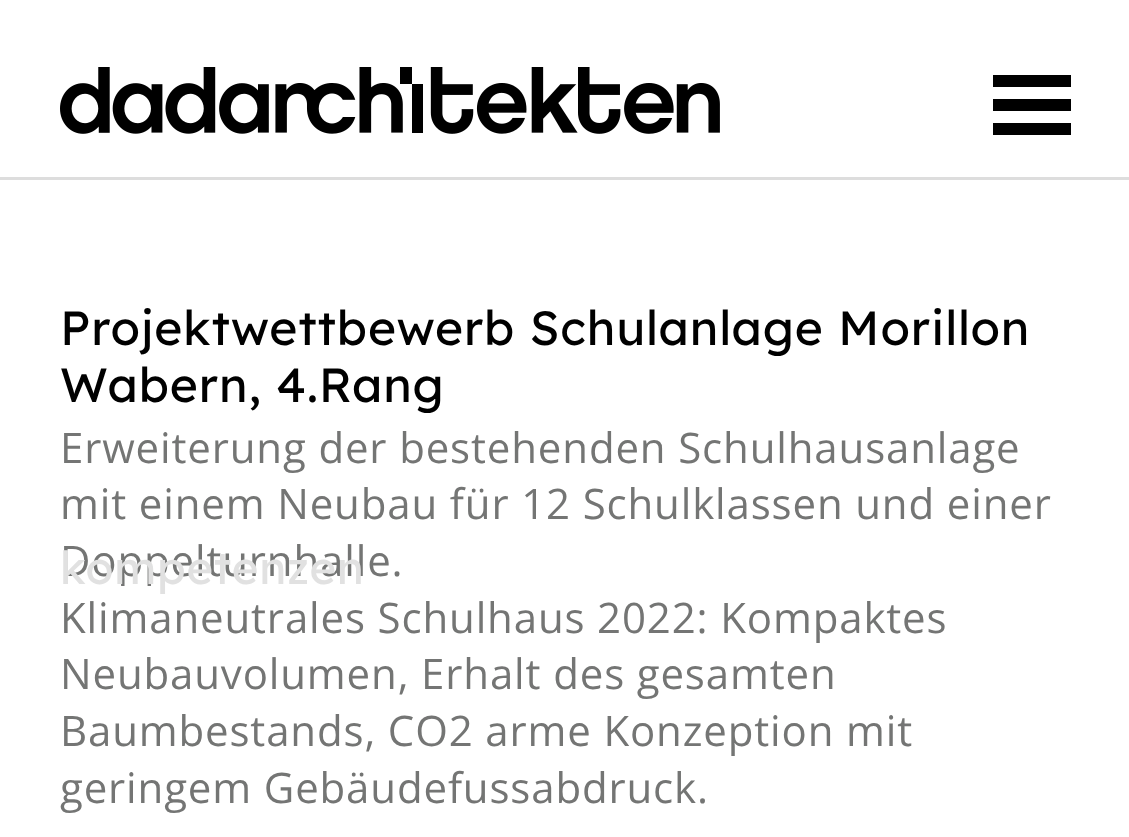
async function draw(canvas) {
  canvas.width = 1129;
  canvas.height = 837;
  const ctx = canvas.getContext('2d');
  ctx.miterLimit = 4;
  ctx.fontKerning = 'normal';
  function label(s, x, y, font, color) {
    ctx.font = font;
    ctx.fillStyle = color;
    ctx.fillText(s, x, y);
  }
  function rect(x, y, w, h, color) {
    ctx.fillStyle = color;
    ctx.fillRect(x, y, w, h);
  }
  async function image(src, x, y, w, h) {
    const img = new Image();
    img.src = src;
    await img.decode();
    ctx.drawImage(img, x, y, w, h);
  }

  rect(0, 0, 1129, 837, '#fff');
  ctx.letterSpacing = '0.85px';
  label('Projektwettbewerb Schulanlage Morillon', 60, 345, '48px Lexend Deca', '#000');
  label('Wabern, 4.Rang', 60, 402, '48px Lexend Deca', '#000');
  label('Erweiterung der bestehenden Schulhausanlage', 60, 463, '42px Open Sans', '#747574');
  label('mit einem Neubau für 12 Schulklassen und einer', 60, 519, '42px Open Sans', '#747574');
  label('Doppelturnhalle.', 60, 576, '42px Open Sans', '#747574');
  label('Klimaneutrales Schulhaus 2022: Kompaktes', 60, 633, '42px Open Sans', '#747574');
  label('Neubauvolumen, Erhalt des gesamten', 60, 689, '42px Open Sans', '#747574');
  label('Baumbestands, CO2 arme Konzeption mit', 60, 746, '42px Open Sans', '#747574');
  label('geringem Gebäudefussabdruck.', 60, 803, '42px Open Sans', '#747574');
  rect(0, 177, 1129, 3, '#ddd');
  await image('assets/img1.png', 60, 67, 660, 67);
  rect(993, 99, 78, 12, '#000');
  rect(993, 75, 78, 12, '#000');
  rect(993, 123, 78, 12, '#000');
  ctx.letterSpacing = '0.75px';
  label('kompetenzen', 60, 584, '45.5px Lexend Deca', '#e1e1e1');
}

draw(document.querySelector('canvas'));
